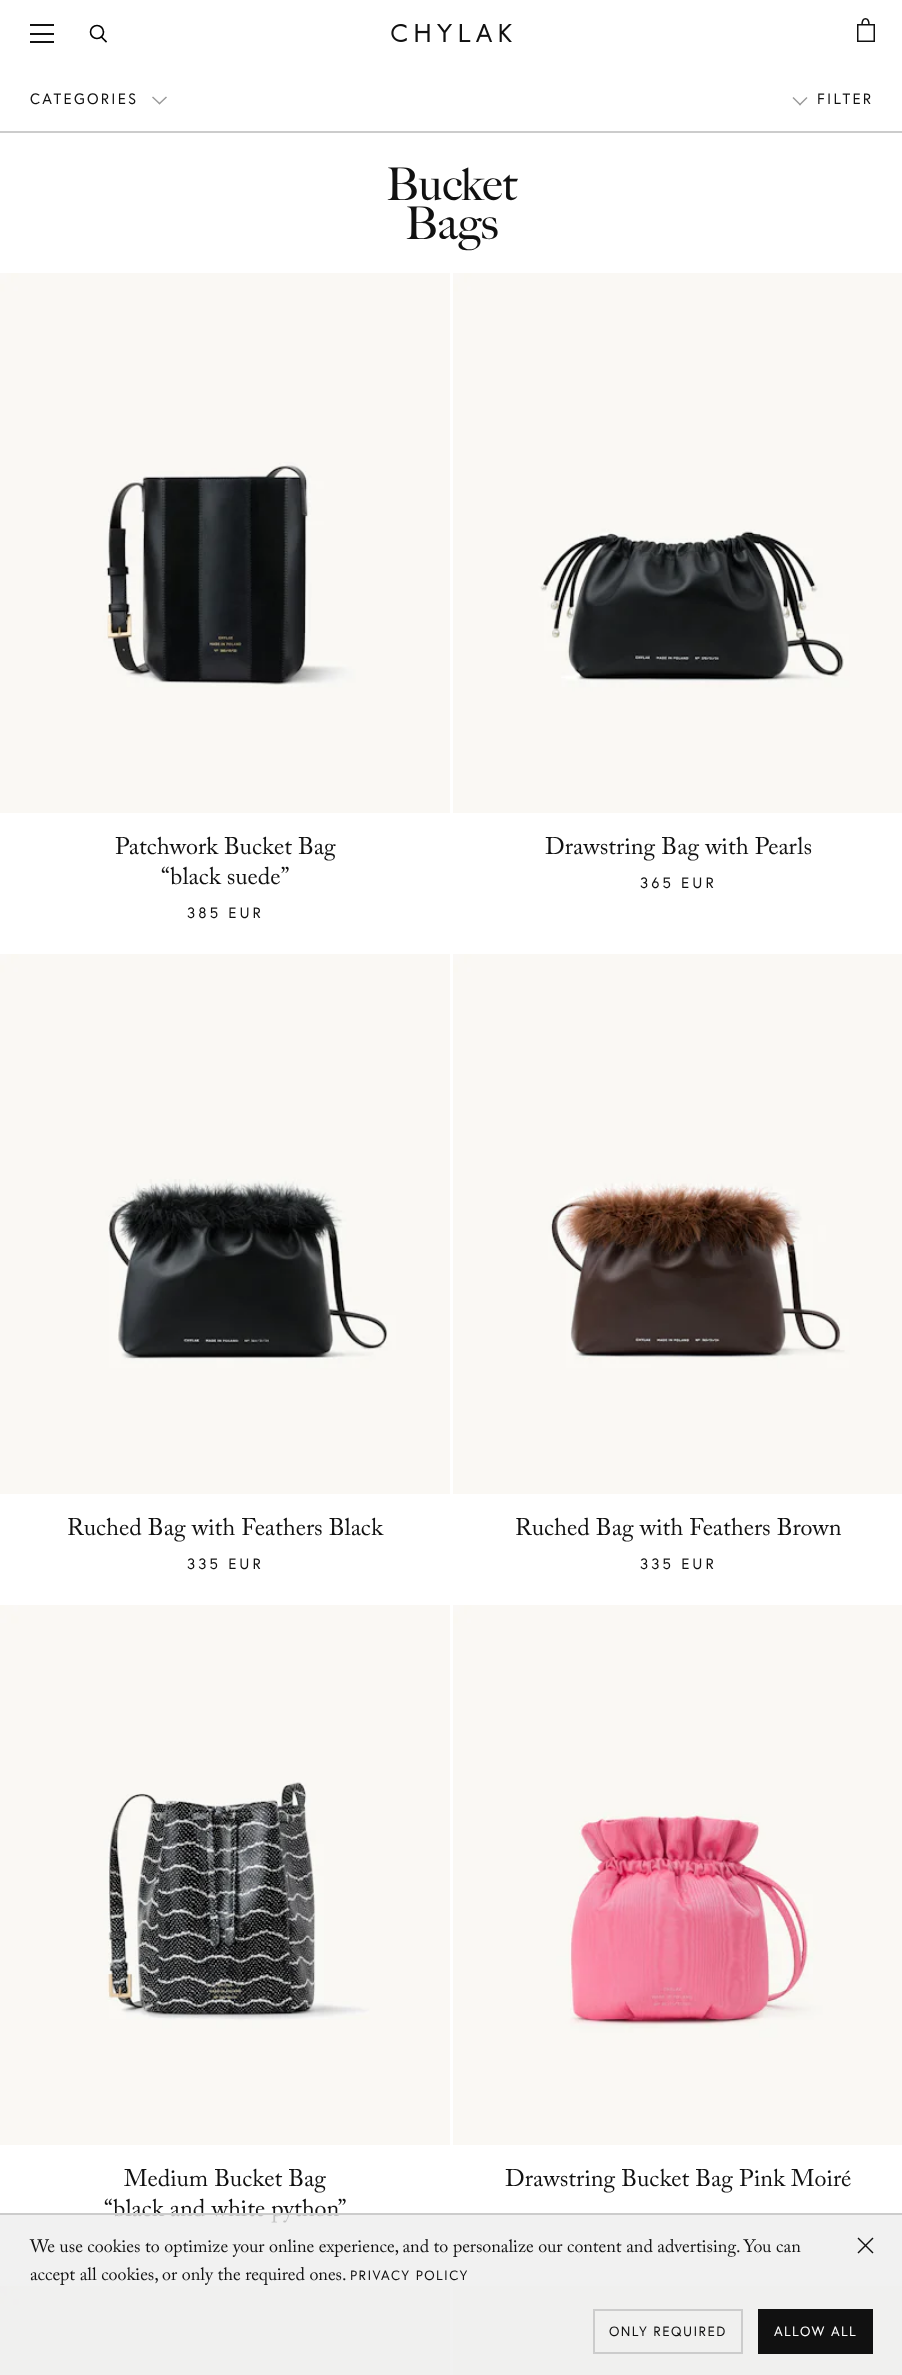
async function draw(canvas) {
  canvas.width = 902;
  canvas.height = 2375;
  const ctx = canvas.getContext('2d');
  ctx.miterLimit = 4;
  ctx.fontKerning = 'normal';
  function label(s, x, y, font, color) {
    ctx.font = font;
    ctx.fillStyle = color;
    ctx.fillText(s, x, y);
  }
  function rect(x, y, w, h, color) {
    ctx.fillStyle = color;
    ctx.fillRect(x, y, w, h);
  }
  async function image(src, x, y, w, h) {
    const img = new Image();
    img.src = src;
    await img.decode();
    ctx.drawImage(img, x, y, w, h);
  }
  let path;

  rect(0, 0, 902, 2375, '#fff');
  rect(30, 24, 24, 2, '#111');
  rect(30, 33, 24, 2, '#111');
  rect(30, 41, 24, 2, '#111');
  path = new Path2D('M101.5 37L106 41.5');
  ctx.strokeStyle = '#000';
  ctx.lineWidth = 1.6;
  ctx.lineCap = 'square';
  ctx.stroke(path);
  ctx.beginPath();
  ctx.arc(97, 32, 6.5, 0, 2 * Math.PI);
  ctx.stroke();
  await image('assets/img1.png', 391, 24, 121, 18);
  ctx.strokeStyle = '#111';
  ctx.lineWidth = 1.5;
  ctx.strokeRect(857.75, 24.75, 16.5, 16.5);
  path = new Path2D('M862 25C862 16.5 869 16.5 869 25');
  ctx.lineCap = 'butt';
  ctx.stroke(path);
  rect(0, 131, 902, 2, '#ccc');
  ctx.letterSpacing = '2.25px';
  label('CATEGORIES', 30, 104, '15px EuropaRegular', '#111');
  ctx.fillStyle = '#999';
  path = new Path2D('M166 96.5L167 97.5L159.5 104.5L158.5 103.5Z');
  ctx.fill(path);
  path = new Path2D('M153 96.5L160.5 103.5L159.5 104.5L152 97.5Z');
  ctx.fill(path);
  path = new Path2D('M806.5 97L807.5 98L800 105.5L799 104.5Z');
  ctx.fill(path);
  path = new Path2D('M793.5 97L801 104.5L800 105.5L792.5 98Z');
  ctx.fill(path);
  label('FILTER', 817, 104, '15px EuropaRegular', '#111');
  ctx.letterSpacing = '0px';
  label('Bucket', 386, 200, '45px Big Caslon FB', '#111');
  label('Bags', 405, 239, '45px Big Caslon FB', '#111');
  await image('assets/img2.png', 0, 273, 450, 540);
  label('Patchwork Bucket Bag', 115, 854, '24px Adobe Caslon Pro', '#111');
  label('“black suede”', 161, 884, '24px Adobe Caslon Pro', '#111');
  ctx.letterSpacing = '3px';
  label('385 EUR', 187, 918, '15px EuropaRegular', '#111');
  await image('assets/img3.png', 453, 273, 449, 540);
  ctx.letterSpacing = '0px';
  label('Drawstring Bag with Pearls', 545, 854, '24px Adobe Caslon Pro', '#111');
  ctx.letterSpacing = '3px';
  label('365 EUR', 640, 888, '15px EuropaRegular', '#111');
  await image('assets/img4.png', 0, 954, 450, 540);
  ctx.letterSpacing = '0px';
  label('Ruched Bag with Feathers Black', 67, 1535, '24px Adobe Caslon Pro', '#111');
  ctx.letterSpacing = '3px';
  label('335 EUR', 187, 1569, '15px EuropaRegular', '#111');
  await image('assets/img5.png', 453, 954, 449, 540);
  ctx.letterSpacing = '0px';
  label('Ruched Bag with Feathers Brown', 515, 1535, '24px Adobe Caslon Pro', '#111');
  ctx.letterSpacing = '3px';
  label('335 EUR', 640, 1569, '15px EuropaRegular', '#111');
  await image('assets/img6.png', 0, 1605, 450, 540);
  ctx.letterSpacing = '0px';
  label('Medium Bucket Bag', 124, 2186, '24px Adobe Caslon Pro', '#111');
  label('“black and white python”', 104, 2216, '24px Adobe Caslon Pro', '#111');
  await image('assets/img7.png', 453, 1605, 449, 540);
  label('Drawstring Bucket Bag Pink Moiré', 505, 2186, '24px Adobe Caslon Pro', '#111');
  await image('assets/img8.png', 0, 2286, 450, 89);
  await image('assets/img9.png', 453, 2286, 449, 89);
  rect(0, 2215, 902, 160, '#eeeeeecc');
  rect(0, 2213, 902, 2, '#ccc');
  label('We use cookies to optimize your online experience, and to personalize our content and advertising. You can', 30, 2252, '18px Adobe Caslon Pro', '#111');
  label('accept all cookies, or only the required ones.', 30, 2280, '18px Adobe Caslon Pro', '#111');
  ctx.letterSpacing = '1.4px';
  label('PRIVACY POLICY', 350, 2280, '13.5px EuropaRegular', '#111');
  path = new Path2D('M857.5 2252.5L872.5 2237.5L873.5 2238.5L858.5 2253.5Z');
  ctx.fill(path);
  path = new Path2D('M858.5 2237.5L873.5 2252.5L872.5 2253.5L857.5 2238.5Z');
  ctx.fill(path);
  ctx.strokeStyle = '#ccc';
  ctx.lineWidth = 2;
  ctx.strokeRect(594, 2310, 148, 43);
  label('ONLY REQUIRED', 609, 2336, '13.5px EuropaRegular', '#111');
  rect(758, 2309, 115, 45, '#111');
  label('ALLOW ALL', 774, 2336, '13.5px EuropaRegular', '#fff');
}

draw(document.querySelector('canvas'));
